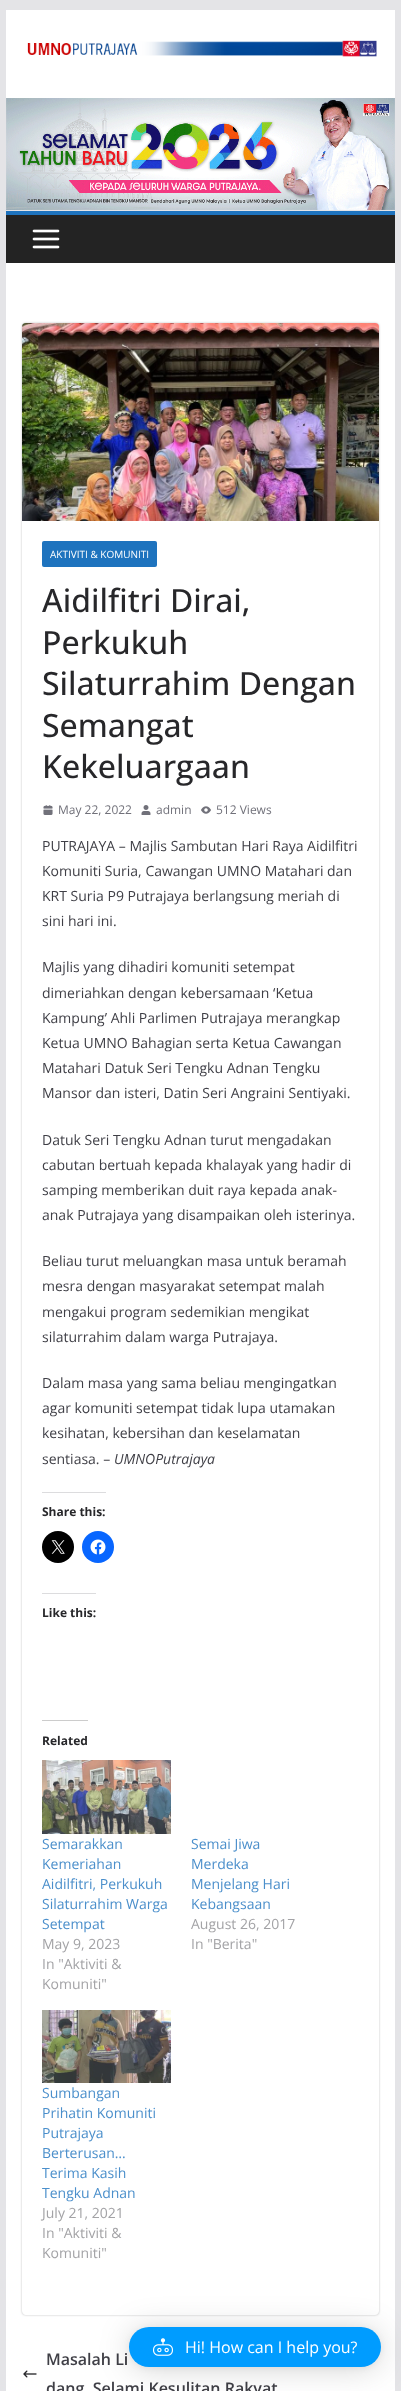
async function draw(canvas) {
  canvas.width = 401;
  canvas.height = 2391;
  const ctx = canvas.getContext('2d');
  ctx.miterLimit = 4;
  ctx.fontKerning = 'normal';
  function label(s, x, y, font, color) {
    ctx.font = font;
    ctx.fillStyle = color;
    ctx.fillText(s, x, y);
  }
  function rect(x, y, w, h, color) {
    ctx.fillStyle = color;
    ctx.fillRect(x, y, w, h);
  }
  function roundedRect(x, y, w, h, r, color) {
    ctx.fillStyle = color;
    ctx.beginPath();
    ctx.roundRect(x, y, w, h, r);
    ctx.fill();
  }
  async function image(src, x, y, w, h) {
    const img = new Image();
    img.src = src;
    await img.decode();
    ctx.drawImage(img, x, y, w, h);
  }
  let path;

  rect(0, 0, 401, 2391, '#e4e4e7');
  rect(6, 10, 389, 88, '#fff');
  await image('assets/img1.png', 27, 40, 350, 17);
  await image('assets/img2.png', 6, 98, 389, 112);
  rect(6, 215, 389, 48, '#232323');
  rect(6, 211, 389, 4, '#1e73be');
  await image('assets/img3.png', 32, 229, 28, 20);
  rect(6, 263, 389, 2128, '#fff');
  ctx.save();
  path = new Path2D('M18 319H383V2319H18ZM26 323H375C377 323 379 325 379 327V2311C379 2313 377 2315 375 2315H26C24 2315 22 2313 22 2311V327C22 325 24 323 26 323Z');
  ctx.clip(path, 'evenodd');
  ctx.fillStyle = '#0000003d';
  ctx.filter = 'blur(1px)';
  ctx.beginPath();
  ctx.roundRect(22, 323, 357, 1992, 4);
  ctx.fill();
  ctx.filter = 'none';
  ctx.restore();
  await image('assets/img4.png', 22, 323, 357, 198);
  roundedRect(42, 541, 115, 26, 2, '#1e73be');
  label('AKTIVITI & KOMUNITI', 50, 558, '10px Open Sans', '#fff');
  label('Aidilfitri Dirai,', 42, 612, '500 32px Open Sans', '#27272a');
  label('Perkukuh', 42, 654, '500 32px Open Sans', '#27272a');
  label('Silaturrahim Dengan', 42, 695, '500 32px Open Sans', '#27272a');
  label('Semangat', 42, 737, '500 32px Open Sans', '#27272a');
  label('Kekeluargaan', 42, 778, '500 32px Open Sans', '#27272a');
  await image('assets/img5.png', 43, 805, 10, 10);
  label('May 22, 2022', 58, 814, '12px Open Sans', '#71717a');
  await image('assets/img6.png', 141, 805, 10, 10);
  label('admin', 156, 814, '12px Open Sans', '#71717a');
  await image('assets/img7.png', 201, 806, 10, 8);
  label('512 Views', 216, 814, '12px Open Sans', '#71717a');
  label('PUTRAJAYA – Majlis Sambutan Hari Raya Aidilfitri', 42, 851, '14px Open Sans', '#3f3f46');
  label('Komuniti Suria, Cawangan UMNO Matahari dan', 42, 876, '14px Open Sans', '#3f3f46');
  label('KRT Suria P9 Putrajaya berlangsung meriah di', 42, 901, '14px Open Sans', '#3f3f46');
  label('sini hari ini.', 42, 926, '14px Open Sans', '#3f3f46');
  label('Majlis yang dihadiri komuniti setempat', 42, 972, '14px Open Sans', '#3f3f46');
  label('dimeriahkan dengan kebersamaan ‘Ketua', 42, 998, '14px Open Sans', '#3f3f46');
  label('Kampung’ Ahli Parlimen Putrajaya merangkap', 42, 1023, '14px Open Sans', '#3f3f46');
  label('Ketua UMNO Bahagian serta Ketua Cawangan', 42, 1048, '14px Open Sans', '#3f3f46');
  label('Matahari Datuk Seri Tengku Adnan Tengku', 42, 1073, '14px Open Sans', '#3f3f46');
  label('Mansor dan isteri, Datin Seri Angraini Sentiyaki.', 42, 1098, '14px Open Sans', '#3f3f46');
  label('Datuk Seri Tengku Adnan turut mengadakan', 42, 1145, '14px Open Sans', '#3f3f46');
  label('cabutan bertuah kepada khalayak yang hadir di', 42, 1170, '14px Open Sans', '#3f3f46');
  label('samping memberikan duit raya kepada anak-', 42, 1195, '14px Open Sans', '#3f3f46');
  label('anak Putrajaya yang disampaikan oleh isterinya.', 42, 1220, '14px Open Sans', '#3f3f46');
  label('Beliau turut meluangkan masa untuk beramah', 42, 1266, '14px Open Sans', '#3f3f46');
  label('mesra dengan masyarakat setempat malah', 42, 1291, '14px Open Sans', '#3f3f46');
  label('mengakui program sedemikian mengikat', 42, 1317, '14px Open Sans', '#3f3f46');
  label('silaturrahim dalam warga Putrajaya.', 42, 1342, '14px Open Sans', '#3f3f46');
  label('Dalam masa yang sama beliau mengingatkan', 42, 1388, '14px Open Sans', '#3f3f46');
  label('agar komuniti setempat tidak lupa utamakan', 42, 1413, '14px Open Sans', '#3f3f46');
  label('kesihatan, kebersihan dan keselamatan', 42, 1438, '14px Open Sans', '#3f3f46');
  label('sentiasa. –', 42, 1464, '14px Open Sans', '#3f3f46');
  label('UMNOPutrajaya', 114, 1464, 'italic 14px Open Sans', '#3f3f46');
  rect(42, 1492, 64, 1, '#dcdcde');
  label('Share this:', 42, 1516, 'bold 12px Open Sans', '#27272a');
  ctx.fillStyle = '#000';
  ctx.beginPath();
  ctx.arc(58, 1547, 16, 0, 2 * Math.PI);
  ctx.fill();
  await image('assets/img8.png', 51, 1540, 14, 14);
  ctx.fillStyle = '#0866ff';
  ctx.beginPath();
  ctx.arc(98, 1547, 16, 0, 2 * Math.PI);
  ctx.fill();
  await image('assets/img9.png', 90, 1539, 16, 16);
  rect(42, 1593, 54, 1, '#dcdcde');
  label('Like this:', 42, 1617, 'bold 12px Open Sans', '#27272a');
  rect(42, 1720, 46, 1, '#ccc');
  label('Related', 42, 1745, 'bold 12px Open Sans', '#27272a');
  await image('assets/img10.png', 42, 1760, 129, 74);
  label('Semarakkan', 42, 1849, '14px Open Sans', '#4b8fcb');
  label('Kemeriahan', 42, 1869, '14px Open Sans', '#4b8fcb');
  label('Aidilfitri, Perkukuh', 42, 1889, '14px Open Sans', '#4b8fcb');
  label('Silaturrahim Warga', 42, 1909, '14px Open Sans', '#4b8fcb');
  label('Setempat', 42, 1929, '14px Open Sans', '#4b8fcb');
  label('May 9, 2023', 42, 1949, '14px Open Sans', '#a3a3a6');
  label('In "Aktiviti &', 42, 1969, '14px Open Sans', '#a3a3a6');
  label('Komuniti"', 42, 1989, '14px Open Sans', '#a3a3a6');
  label('Semai Jiwa', 191, 1849, '14px Open Sans', '#4b8fcb');
  label('Merdeka', 191, 1869, '14px Open Sans', '#4b8fcb');
  label('Menjelang Hari', 191, 1889, '14px Open Sans', '#4b8fcb');
  label('Kebangsaan', 191, 1909, '14px Open Sans', '#4b8fcb');
  label('August 26, 2017', 191, 1929, '14px Open Sans', '#a3a3a6');
  label('In "Berita"', 191, 1949, '14px Open Sans', '#a3a3a6');
  await image('assets/img11.png', 42, 2010, 129, 73);
  label('Sumbangan', 42, 2098, '14px Open Sans', '#4b8fcb');
  label('Prihatin Komuniti', 42, 2118, '14px Open Sans', '#4b8fcb');
  label('Putrajaya', 42, 2138, '14px Open Sans', '#4b8fcb');
  label('Berterusan…', 42, 2158, '14px Open Sans', '#4b8fcb');
  label('Terima Kasih', 42, 2178, '14px Open Sans', '#4b8fcb');
  label('Tengku Adnan', 42, 2198, '14px Open Sans', '#4b8fcb');
  label('July 21, 2021', 42, 2218, '14px Open Sans', '#a3a3a6');
  label('In "Aktiviti &', 42, 2238, '14px Open Sans', '#a3a3a6');
  label('Komuniti"', 42, 2258, '14px Open Sans', '#a3a3a6');
  label('Masalah Li', 46, 2365, '600 16px Open Sans', '#3f3f46');
  await image('assets/img12.png', 23, 2370, 14, 8);
  label('dang, Selami Kesulitan Rakyat', 46, 2394, '600 16px Open Sans', '#3f3f46');
  ctx.fillStyle = '#00000029';
  ctx.filter = 'blur(16px)';
  ctx.beginPath();
  ctx.roundRect(129, 2329, 252, 40, 20);
  ctx.fill();
  ctx.filter = 'none';
  ctx.fillStyle = '#0000000f';
  ctx.filter = 'blur(3px)';
  ctx.beginPath();
  ctx.roundRect(129, 2328, 252, 40, 20);
  ctx.fill();
  ctx.filter = 'none';
  roundedRect(129, 2327, 252, 40, 20, '#009cff');
  await image('assets/img13.png', 153, 2338, 20, 18);
  label('Hi! How can I help you?', 185, 2353, '16px Open Sans', '#fff');
}

draw(document.querySelector('canvas'));
